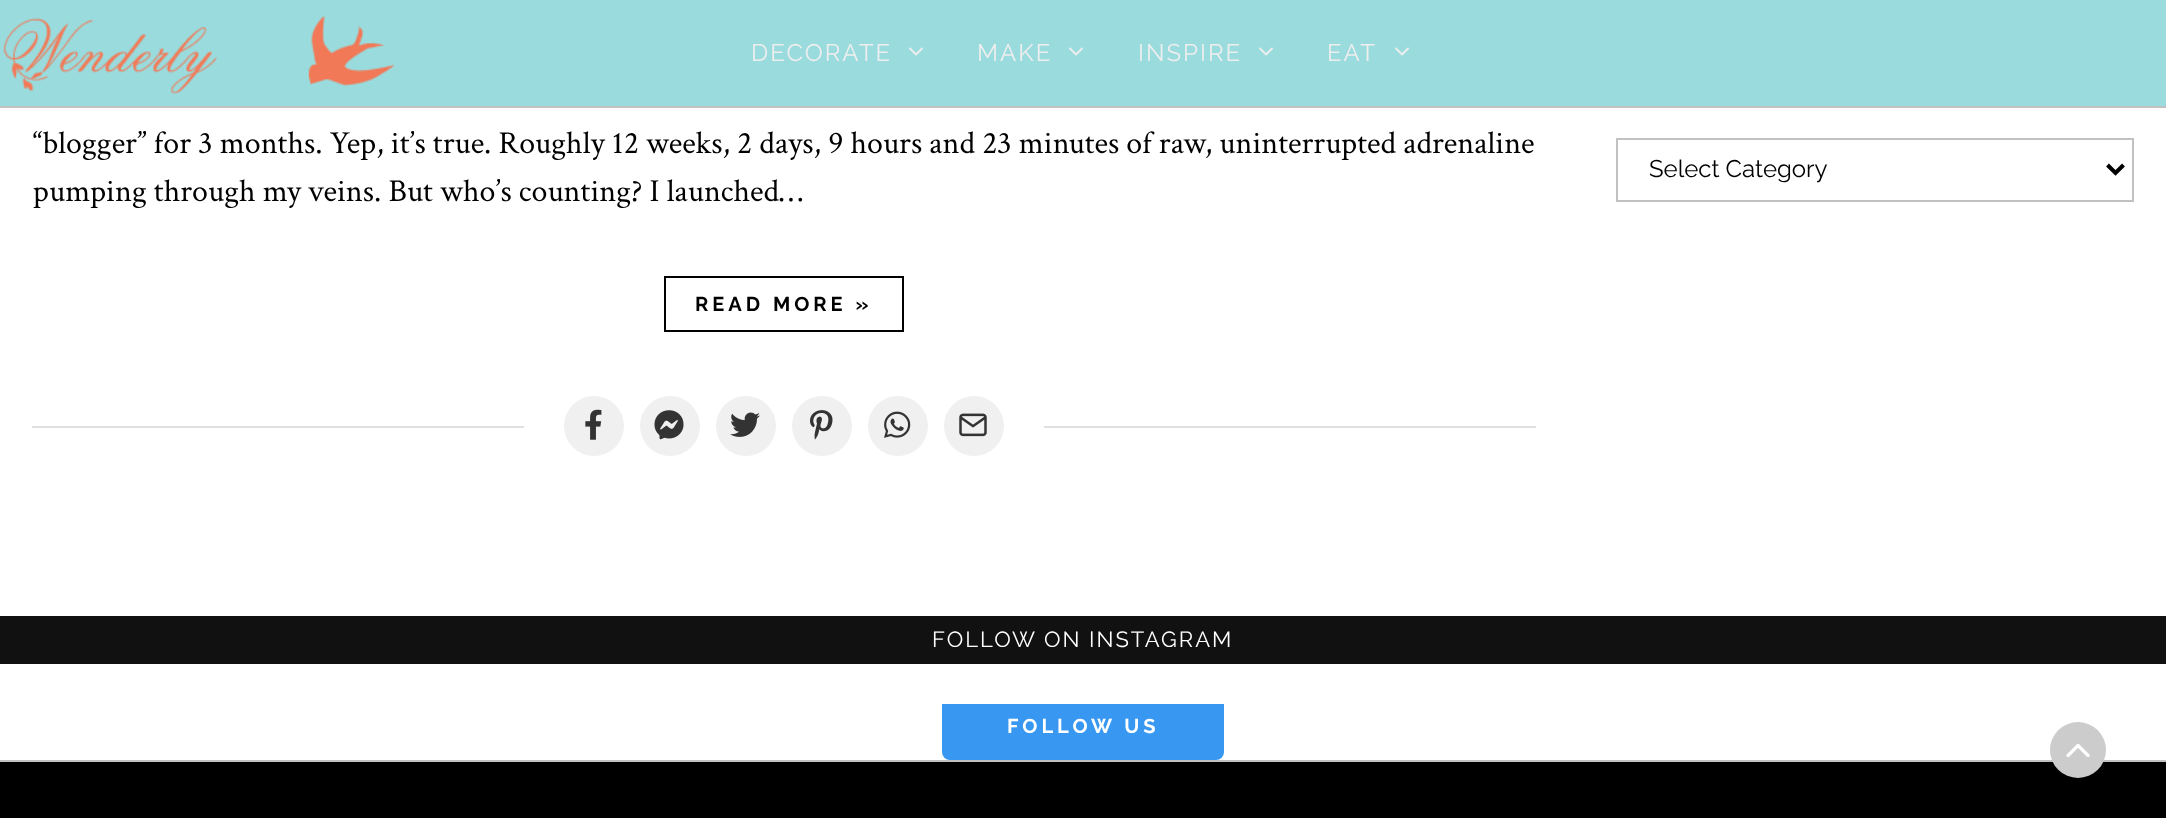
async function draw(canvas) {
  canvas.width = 2166;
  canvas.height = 818;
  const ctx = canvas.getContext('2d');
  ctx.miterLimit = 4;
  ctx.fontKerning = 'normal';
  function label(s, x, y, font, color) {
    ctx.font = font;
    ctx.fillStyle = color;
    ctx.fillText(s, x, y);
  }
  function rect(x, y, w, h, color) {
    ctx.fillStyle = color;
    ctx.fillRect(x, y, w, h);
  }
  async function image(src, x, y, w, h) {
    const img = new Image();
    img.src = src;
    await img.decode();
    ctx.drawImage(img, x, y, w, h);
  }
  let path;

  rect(0, 0, 2166, 818, '#fff');
  rect(0, 106, 2166, 2, '#c0c1c0');
  rect(0, 0, 2166, 106, '#9adbdd');
  await image('assets/img1.png', 3, 16, 392, 78);
  ctx.letterSpacing = '2px';
  label('DECORATE', 751, 61, '24px Raleway', '#eee');
  await image('assets/img2.png', 909, 47, 14, 9);
  label('MAKE', 977, 61, '24px Raleway', '#eee');
  await image('assets/img2.png', 1069, 47, 14, 9);
  label('INSPIRE', 1138, 61, '24px Raleway', '#eee');
  await image('assets/img2.png', 1259, 47, 14, 9);
  label('EAT', 1327, 61, '24px Raleway', '#eee');
  await image('assets/img2.png', 1395, 47, 14, 9);
  ctx.letterSpacing = '0px';
  label('“blogger” for 3 months. Yep, it’s true. Roughly 12 weeks, 2 days, 9 hours and 23 minutes of raw, uninterrupted adrenaline', 33, 153, '32px Crimson Text', '#000');
  label('pumping through my veins. But who’s counting? I launched…', 33, 201, '32px Crimson Text', '#000');
  ctx.strokeStyle = '#000';
  ctx.lineWidth = 2;
  ctx.strokeRect(665, 277, 238, 54);
  ctx.letterSpacing = '4px';
  label('READ MORE »', 695, 311, 'bold 20px Raleway', '#000');
  rect(32, 426, 492, 2, '#e0e0e0');
  ctx.fillStyle = '#f0f0f0';
  ctx.beginPath();
  ctx.arc(594, 426, 30, 0, 2 * Math.PI);
  ctx.fill();
  await image('assets/img3.png', 585, 409, 17, 31);
  ctx.beginPath();
  ctx.arc(670, 426, 30, 0, 2 * Math.PI);
  ctx.fill();
  await image('assets/img4.png', 654, 410, 30, 30);
  ctx.beginPath();
  ctx.arc(746, 426, 30, 0, 2 * Math.PI);
  ctx.fill();
  await image('assets/img5.png', 730, 412, 30, 25);
  ctx.beginPath();
  ctx.arc(822, 426, 30, 0, 2 * Math.PI);
  ctx.fill();
  await image('assets/img6.png', 810, 410, 23, 30);
  ctx.beginPath();
  ctx.arc(898, 426, 30, 0, 2 * Math.PI);
  ctx.fill();
  await image('assets/img7.png', 884, 411, 27, 27);
  ctx.beginPath();
  ctx.arc(974, 426, 30, 0, 2 * Math.PI);
  ctx.fill();
  await image('assets/img8.png', 959, 413, 28, 24);
  rect(1044, 426, 492, 2, '#e0e0e0');
  ctx.strokeStyle = '#c0c1c0';
  ctx.strokeRect(1617, 139, 516, 62);
  path = new Path2D('M2107.5 165L2115.5 173L2123.5 165');
  ctx.strokeStyle = '#000';
  ctx.lineWidth = 4;
  ctx.stroke(path);
  ctx.letterSpacing = '0px';
  label('Select Category', 1649, 177, '24px Raleway', '#000');
  rect(0, 616, 2166, 48, '#111');
  ctx.letterSpacing = '2px';
  label('FOLLOW ON INSTAGRAM', 932, 647, '22px Raleway', '#fff');
  ctx.fillStyle = '#3897f0';
  ctx.beginPath();
  ctx.roundRect(942, 704, 282, 56, [0, 0, 8, 8]);
  ctx.fill();
  ctx.letterSpacing = '4px';
  label('FOLLOW US', 1007, 733, 'bold 20px Raleway', '#fff');
  rect(0, 762, 2166, 56, '#000');
  rect(0, 760, 2166, 2, '#c0c1c0');
  ctx.fillStyle = '#ccc';
  ctx.beginPath();
  ctx.arc(2078, 750, 28, 0, 2 * Math.PI);
  ctx.fill();
  await image('assets/img9.png', 2066, 744, 24, 13);
}

draw(document.querySelector('canvas'));
